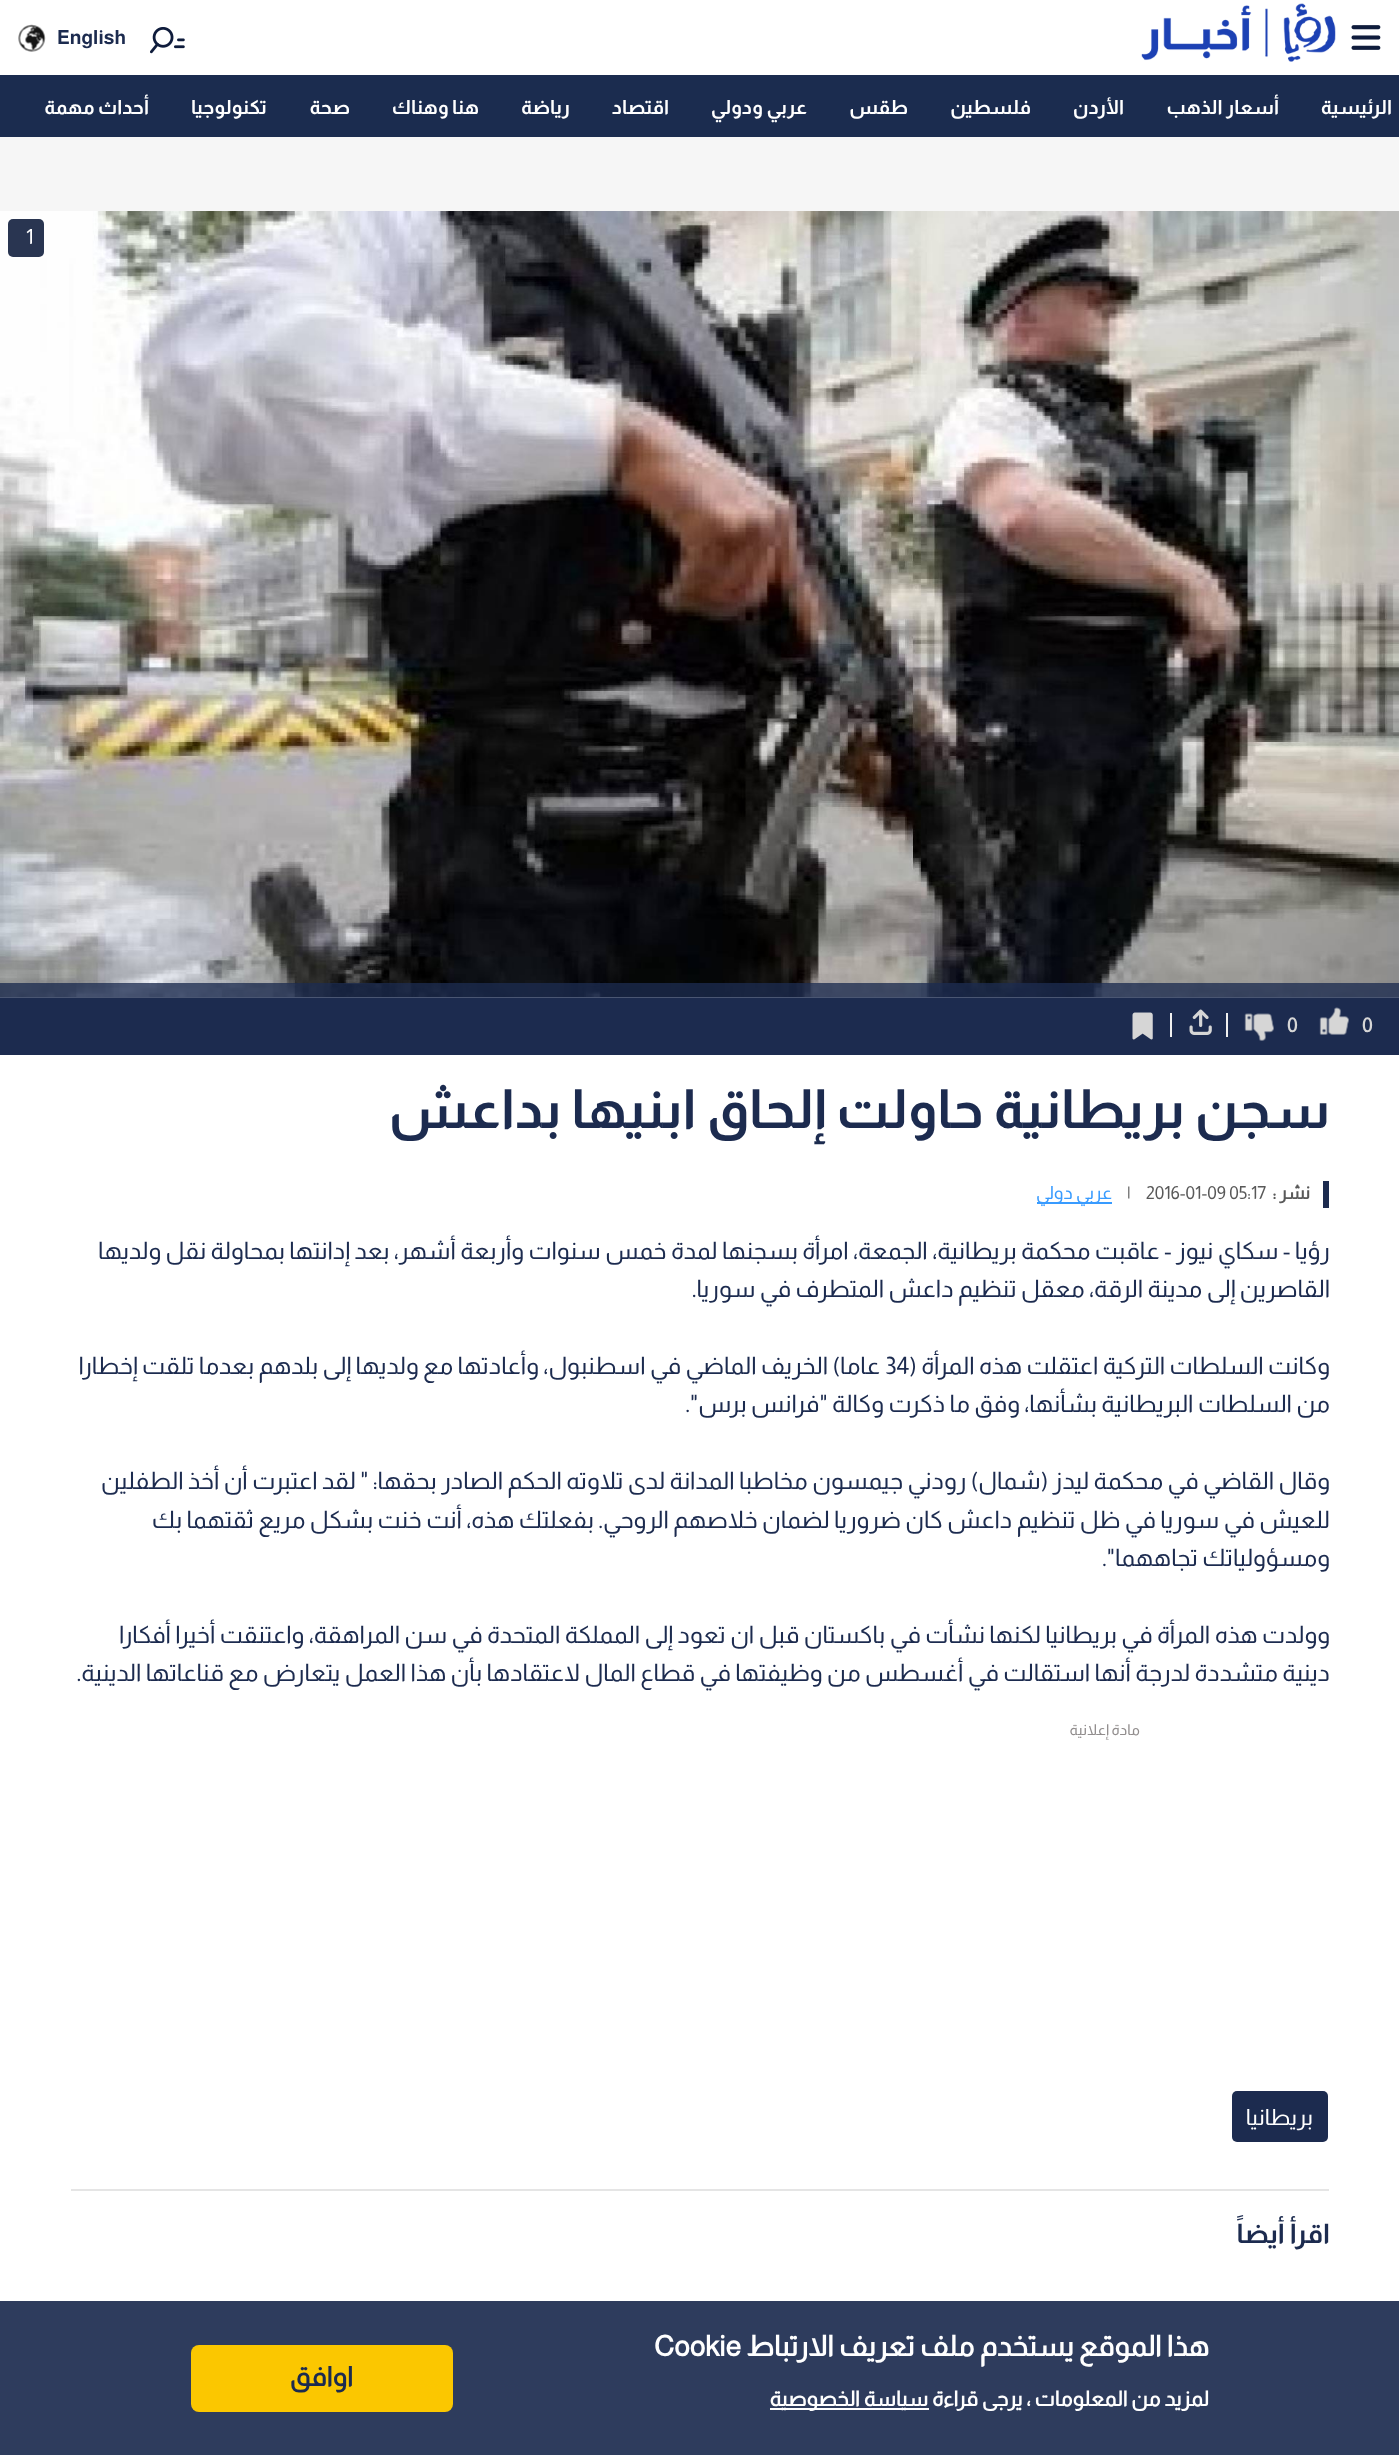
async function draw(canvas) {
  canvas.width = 1399;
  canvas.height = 2455;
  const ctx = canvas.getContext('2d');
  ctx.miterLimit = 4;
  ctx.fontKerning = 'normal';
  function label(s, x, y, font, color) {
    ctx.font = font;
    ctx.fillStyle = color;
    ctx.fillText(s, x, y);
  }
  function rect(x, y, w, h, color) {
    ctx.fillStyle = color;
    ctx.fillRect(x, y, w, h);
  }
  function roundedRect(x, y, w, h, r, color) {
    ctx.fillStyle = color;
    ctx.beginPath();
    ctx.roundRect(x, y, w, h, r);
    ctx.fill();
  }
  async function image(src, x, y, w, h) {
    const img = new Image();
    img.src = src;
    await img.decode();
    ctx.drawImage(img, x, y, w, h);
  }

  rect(0, 0, 1399, 2455, '#f6f6f6');
  rect(0, 0, 1399, 75, '#fff');
  await image('assets/img1.png', 1351, 25, 30, 25);
  await image('assets/img2.png', 1141, 3, 195, 59);
  await image('assets/img3.png', 150, 27, 35, 27);
  label('English', 57, 44, 'bold 19.5px Almarai', '#1c2b4f');
  await image('assets/img4.png', 18, 24, 28, 28);
  rect(0, 75, 1399, 62, '#1b2c4f');
  ctx.direction = 'rtl';
  label('الرئيسية', 1392, 114, 'bold 19.5px Almarai', '#fff');
  label('أسعار الذهب', 1279, 114, 'bold 19.5px Almarai', '#fff');
  label('الأردن', 1124, 114, 'bold 19.5px Almarai', '#fff');
  label('فلسطين', 1031, 114, 'bold 19.5px Almarai', '#fff');
  label('طقس', 908, 114, 'bold 19.5px Almarai', '#fff');
  label('عربي ودولي', 807, 114, 'bold 19.5px Almarai', '#fff');
  label('اقتصاد', 669, 114, 'bold 19.5px Almarai', '#fff');
  label('رياضة', 570, 114, 'bold 19.5px Almarai', '#fff');
  label('هنا وهناك', 479, 114, 'bold 19.5px Almarai', '#fff');
  label('صحة', 350, 114, 'bold 19.5px Almarai', '#fff');
  label('تكنولوجيا', 267, 114, 'bold 19.5px Almarai', '#fff');
  label('أحداث مهمة', 149, 114, 'bold 19.5px Almarai', '#fff');
  rect(0, 2301, 1399, 154, '#2e3c5d');
  label('هذا الموقع يستخدم ملف تعريف الارتباط', 1209, 2356, 'bold 28.5px "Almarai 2"', '#fff');
  ctx.direction = 'ltr';
  label('Cookie', 654, 2356, 'bold 28.5px "Almarai 2"', '#fff');
  ctx.direction = 'rtl';
  label('لمزيد من المعلومات ، يرجى قراءة', 1209, 2406, 'bold 21px "Almarai 2"', '#fff');
  rect(770, 2408, 159, 2, '#fff');
  label('سياسة الخصوصية', 928, 2406, 'bold 21px "Almarai 2"', '#fff');
  roundedRect(191, 2345, 262, 67, 8, '#fbc700');
  label('اوافق', 353, 2386, 'bold 27px "Almarai 2"', '#1c2b4f');
  rect(0, 1055, 1399, 1246, '#fff');
  rect(0, 212, 1399, 786, '#ececec');
  await image('assets/img5.png', 0, 211, 1399, 786);
  roundedRect(8, 219, 36, 38, 5, '#293551');
  ctx.direction = 'ltr';
  label('1', 26, 244, '21px Almarai', '#fff');
  rect(0, 983, 1399, 15, '#1c2b4fc7');
  rect(0, 998, 1399, 57, '#1c2b4f');
  label('0', 1362, 1032, 'bold 19.5px "Almarai 2"', '#d6d6d6');
  await image('assets/img6.png', 1319, 1007, 30, 28);
  label('0', 1287, 1032, 'bold 19.5px "Almarai 2"', '#d6d6d6');
  await image('assets/img7.png', 1244, 1013, 30, 28);
  rect(1226, 1013, 2, 24, '#f0f0f0');
  await image('assets/img8.png', 1189, 1009, 23, 26);
  rect(1170, 1013, 2, 24, '#f0f0f0');
  await image('assets/img9.png', 1132, 1012, 21, 28);
  ctx.direction = 'rtl';
  label('سجن بريطانية حاولت إلحاق ابنيها بداعش', 1330, 1128, 'bold 54px Almarai', '#1c2b4f');
  rect(1323, 1181, 6, 27, '#1c2b4f');
  label('نشر :', 1310, 1199, 'bold 18px "Almarai 2"', '#595959');
  ctx.direction = 'ltr';
  label('2016-01-09 05:17', 1146, 1199, '18px Almarai', '#595959');
  label('|', 1127, 1199, '18px Almarai', '#595959');
  rect(1037, 1202, 75, 2, '#389bff');
  ctx.direction = 'rtl';
  label('عربي دولي', 1112, 1199, '18px Almarai', '#389bff');
  label('رؤيا - سكاي نيوز - عاقبت محكمة بريطانية، الجمعة، امرأة بسجنها لمدة خمس سنوات وأربعة أشهر، بعد إدانتها بمحاولة نقل ولديها', 1330, 1259, '24px Almarai', '#1c2b4f');
  label('القاصرين إلى مدينة الرقة، معقل تنظيم داعش المتطرف في سوريا.', 1330, 1297, '24px Almarai', '#1c2b4f');
  label('وكانت السلطات التركية اعتقلت هذه المرأة (', 1330, 1374, '24px Almarai', '#1c2b4f');
  ctx.direction = 'ltr';
  label('34', 885, 1374, '24px Almarai', '#1c2b4f');
  ctx.direction = 'rtl';
  label('عاما) الخريف الماضي في اسطنبول، وأعادتها مع ولديها إلى بلدهم بعدما تلقت إخطارا', 880, 1374, '24px Almarai', '#1c2b4f');
  label('من السلطات البريطانية بشأنها، وفق ما ذكرت وكالة "فرانس برس".', 1330, 1412, '24px Almarai', '#1c2b4f');
  label('وقال القاضي في محكمة ليدز (شمال) رودني جيمسون مخاطبا المدانة لدى تلاوته الحكم الصادر بحقها: " لقد اعتبرت أن أخذ الطفلين', 1330, 1489, '24px Almarai', '#1c2b4f');
  label('للعيش في سوريا في ظل تنظيم داعش كان ضروريا لضمان خلاصهم الروحي. بفعلتك هذه، أنت خنت بشكل مريع ثقتهما بك', 1330, 1528, '24px Almarai', '#1c2b4f');
  label('ومسؤولياتك تجاههما".', 1330, 1566, '24px Almarai', '#1c2b4f');
  label('وولدت هذه المرأة في بريطانيا لكنها نشأت في باكستان قبل ان تعود إلى المملكة المتحدة في سن المراهقة، واعتنقت أخيرا أفكارا', 1330, 1643, '24px Almarai', '#1c2b4f');
  label('دينية متشددة لدرجة أنها استقالت في أغسطس من وظيفتها في قطاع المال لاعتقادها بأن هذا العمل يتعارض مع قناعاتها الدينية.', 1330, 1681, '24px Almarai', '#1c2b4f');
  label('مادة إعلانية', 1140, 1735, '15px Almarai', '#918d8d');
  roundedRect(1232, 2091, 96, 51, 5, '#1c2b4f');
  label('بريطانيا', 1313, 2125, '22.5px Almarai', '#fff');
  rect(71, 2189, 1258, 2, '#e5e5e5');
  label('اقرأ أيضاً', 1330, 2243, 'bold 27px Almarai', '#1c2b4f');
}

draw(document.querySelector('canvas'));
